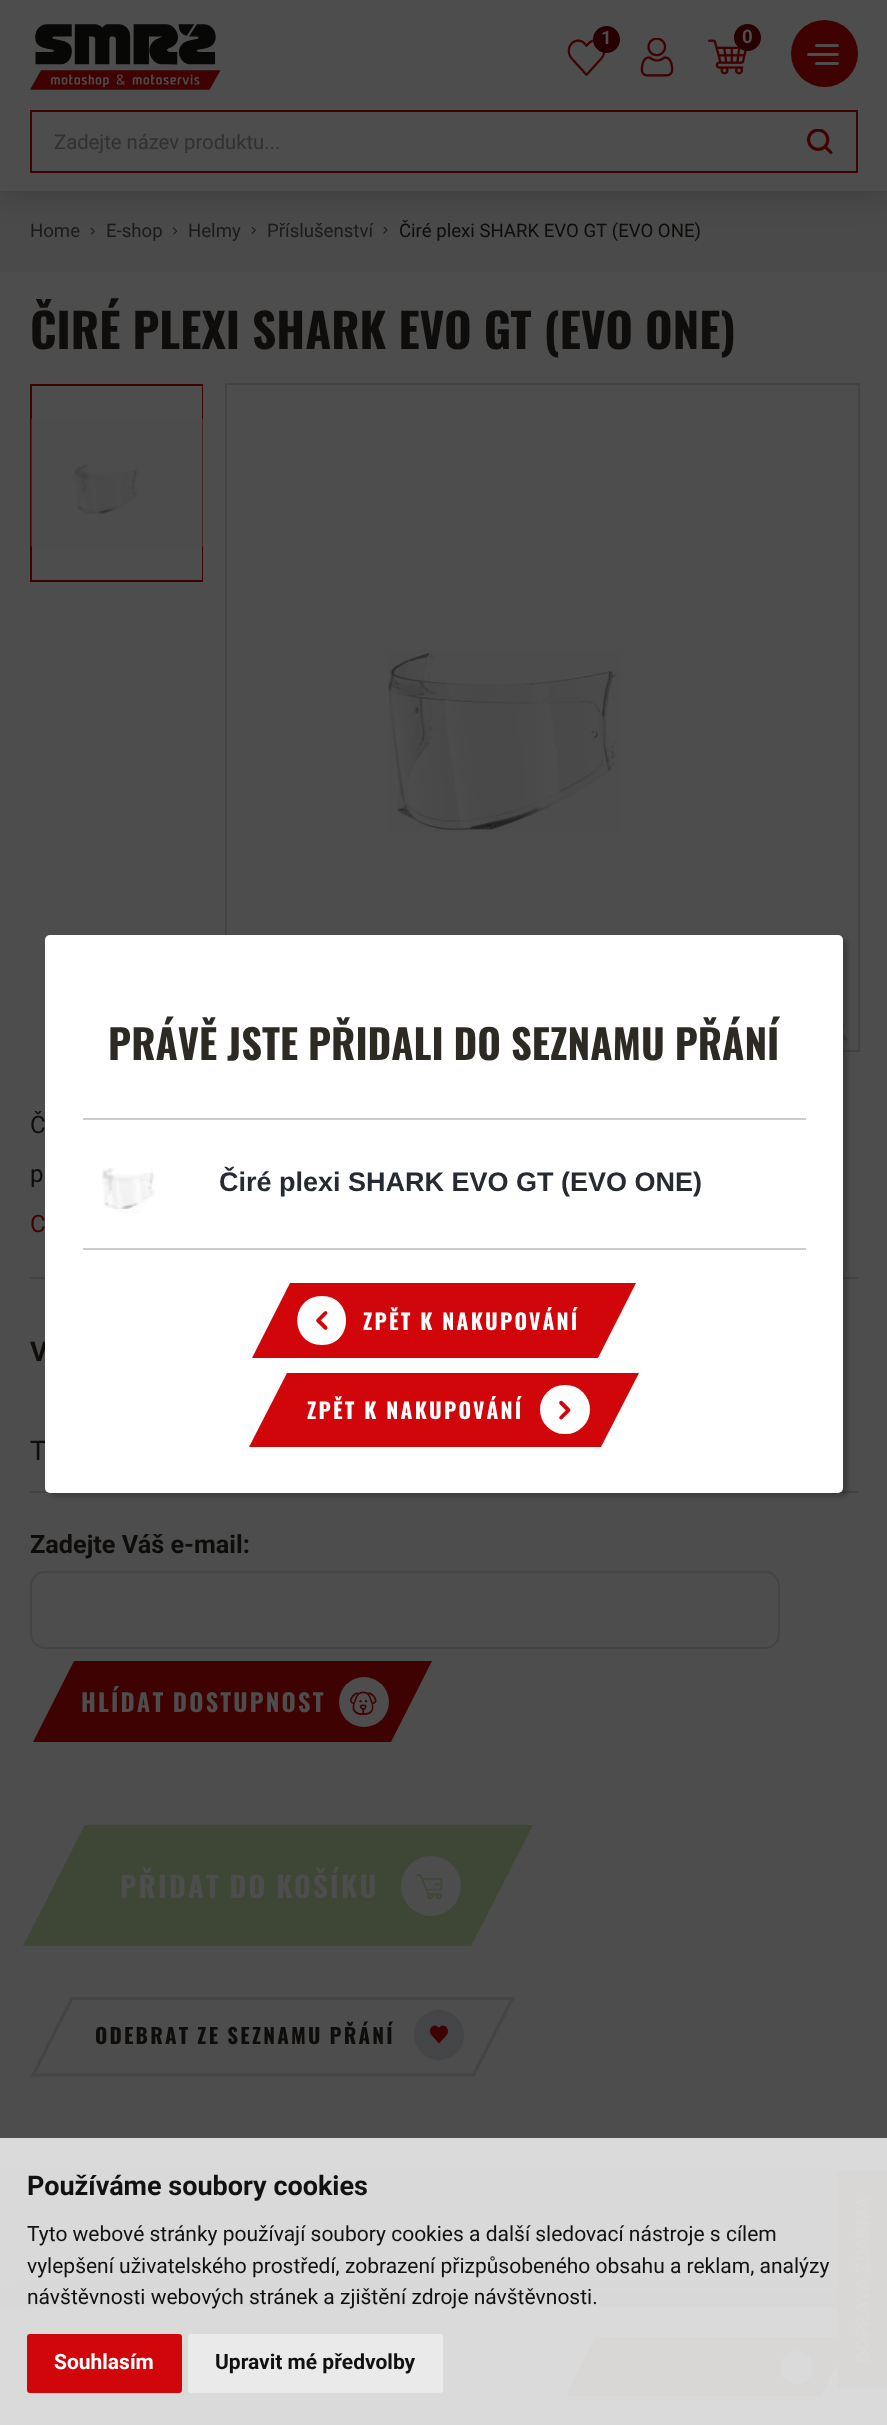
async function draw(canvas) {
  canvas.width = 887;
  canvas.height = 2425;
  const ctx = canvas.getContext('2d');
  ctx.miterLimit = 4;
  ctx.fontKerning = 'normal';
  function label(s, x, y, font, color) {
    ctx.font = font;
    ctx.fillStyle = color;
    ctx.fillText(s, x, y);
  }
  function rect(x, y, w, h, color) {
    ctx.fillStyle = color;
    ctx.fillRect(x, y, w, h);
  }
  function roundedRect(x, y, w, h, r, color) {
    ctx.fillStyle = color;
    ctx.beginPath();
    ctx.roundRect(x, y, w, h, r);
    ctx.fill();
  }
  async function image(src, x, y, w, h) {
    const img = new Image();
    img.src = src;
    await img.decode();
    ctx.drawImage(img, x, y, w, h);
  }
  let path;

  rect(0, 0, 887, 2425, '#4d4d4d');
  rect(0, 2138, 887, 31, '#dadada');
  rect(0, 191, 887, 81, '#4a4a4a');
  await image('assets/img6.png', 90, 227, 5, 8);
  await image('assets/img7.png', 173, 227, 5, 8);
  await image('assets/img8.png', 251, 227, 5, 7);
  await image('assets/img9.png', 383, 226, 5, 8);
  ctx.fillStyle = '#00000029';
  ctx.filter = 'blur(15px)';
  ctx.beginPath();
  ctx.rect(0, 5, 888, 190);
  ctx.fill();
  ctx.filter = 'none';
  rect(0, 0, 887, 191, '#4d4d4d');
  await image('assets/img1.png', 30, 24, 191, 66);
  await image('assets/img2.png', 567, 39, 39, 37);
  ctx.fillStyle = '#270001';
  ctx.beginPath();
  ctx.arc(606.5, 39.5, 13.5, 0, 2 * Math.PI);
  ctx.fill();
  label('1', 601, 44, 'bold 18.6px Roboto', '#4d4d4d');
  await image('assets/img3.png', 640, 38, 34, 39);
  await image('assets/img4.png', 708, 39, 39, 36);
  ctx.fillStyle = '#270001';
  ctx.beginPath();
  ctx.arc(747.5, 37.5, 13.5, 0, 2 * Math.PI);
  ctx.fill();
  label('0', 742, 43, 'bold 18.6px Roboto', '#4d4d4d');
  ctx.fillStyle = '#3f0203';
  ctx.beginPath();
  ctx.arc(824.5, 53.5, 33.5, 0, 2 * Math.PI);
  ctx.fill();
  roundedRect(815, 44, 24, 3, 1.5, '#4d4d4d');
  roundedRect(807, 53, 32, 3, 1.5, '#4d4d4d');
  roundedRect(815, 62, 24, 3, 1.5, '#4d4d4d');
  ctx.strokeStyle = '#3f0203';
  ctx.lineWidth = 2;
  ctx.strokeRect(31, 111, 826, 61);
  ctx.save();
  ctx.beginPath();
  ctx.rect(54, 129, 698, 24);
  ctx.clip();
  label('Zadejte název produktu...', 54, 149, '20.25px Roboto', '#323130');
  ctx.restore();
  await image('assets/img5.png', 807, 129, 26, 25);
  label('Home', 30, 237, '18.6px Roboto', '#1b1b1a');
  label('E-shop', 106, 237, '18.6px Roboto', '#1b1b1a');
  label('Helmy', 188, 237, '18.6px Roboto', '#1b1b1a');
  label('Příslušenství', 267, 237, '18.6px Roboto', '#1b1b1a');
  label('Čiré plexi SHARK EVO GT (EVO ONE)', 399, 237, '18.6px Roboto', '#0e0d0b');
  label('ČIRÉ PLEXI SHARK EVO GT (EVO ONE)', 30, 349, 'bold 47.25px Oswald', '#0e0d0b');
  ctx.save();
  ctx.beginPath();
  ctx.rect(30, 384, 173, 623);
  ctx.clip();
  ctx.strokeRect(31, 385, 172, 196);
  ctx.restore();
  await image('assets/img10.png', 31, 418, 172, 129);
  ctx.strokeStyle = '#424242';
  ctx.strokeRect(226, 384, 633, 667);
  await image('assets/img11.png', 388, 651, 233, 181);
  await image('assets/img12.png', 843, 1020, 5, 21);
  rect(30, 1277, 828, 2, '#424242');
  label('Č', 30, 1133, '24px Roboto', '#0e0d0b');
  label('p', 30, 1182, '24px Roboto', '#0e0d0b');
  label('C', 30, 1232, '24px Roboto', '#3f0203');
  label('V', 30, 1361, 'bold 27px Roboto', '#0e0d0b');
  rect(30, 1491, 828, 2, '#424242');
  label('T', 30, 1460, '27px Roboto', '#0e0d0b');
  label('Zadejte Váš e-mail:', 30, 1553, 'bold 25.25px Roboto', '#0e0d0b');
  ctx.beginPath();
  ctx.roundRect(31, 1572, 748, 76, 14);
  ctx.strokeStyle = '#444';
  ctx.stroke();
  ctx.fillStyle = '#3f0203';
  path = new Path2D('M74 1661H432L391 1742H33Z');
  ctx.fill(path);
  ctx.letterSpacing = '2.2px';
  ctx.wordSpacing = '-1px';
  label('HLÍDAT DOSTUPNOST', 81, 1712, 'bold 24.25px Oswald', '#4d4d4d');
  ctx.beginPath();
  ctx.arc(364, 1702, 25, 0, 2 * Math.PI);
  ctx.fill();
  await image('assets/img13.png', 350, 1691, 27, 25);
  ctx.fillStyle = '#3e4736';
  path = new Path2D('M85 1825H533L471 1946H23Z');
  ctx.fill(path);
  label('PŘIDAT DO KOŠÍKU', 120, 1898, 'bold 28.75px Oswald', '#4d4d4d');
  ctx.beginPath();
  ctx.arc(431, 1886, 30, 0, 2 * Math.PI);
  ctx.fill();
  await image('assets/img14.png', 416, 1874, 27, 26);
  path = new Path2D('M72 1998.5H512.5L473.5 2075H33Z');
  ctx.lineWidth = 3;
  ctx.stroke(path);
  ctx.wordSpacing = '-0.5px';
  label('ODEBRAT ZE SEZNAMU PŘÁNÍ', 95, 2044, 'bold 21px Oswald', '#0e0d0b');
  ctx.fillStyle = '#444546';
  ctx.beginPath();
  ctx.arc(439, 2035, 25, 0, 2 * Math.PI);
  ctx.fill();
  await image('assets/img15.png', 429, 2025, 19, 19);
  rect(0, 2169, 887, 138, '#d9d9d9');
  ctx.fillStyle = '#d6d6d629';
  ctx.filter = 'blur(15px)';
  ctx.beginPath();
  ctx.rect(0, 2312, 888, 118);
  ctx.fill();
  ctx.filter = 'none';
  rect(0, 2307, 887, 118, '#dadada');
  ctx.fillStyle = '#d9d6d6';
  path = new Path2D('M595 2337H851L821 2396H566Z');
  ctx.fill(path);
  ctx.fillStyle = '#dadada';
  ctx.beginPath();
  ctx.arc(796.5, 2367.5, 16.5, 0, 2 * Math.PI);
  ctx.fill();
  ctx.fillStyle = '#00000033';
  ctx.filter = 'blur(2px)';
  ctx.beginPath();
  ctx.roundRect(50, 939, 798, 558, 5);
  ctx.fill();
  ctx.filter = 'none';
  roundedRect(45, 935, 798, 558, 5, '#fff');
  ctx.letterSpacing = '0px';
  label('PRÁVĚ JSTE PŘIDALI DO SEZNAMU PŘÁNÍ', 108, 1060, 'bold 40.5px Oswald', '#2d2a24');
  rect(83, 1118, 723, 2, '#ccc');
  rect(83, 1248, 723, 2, '#ccc');
  await image('assets/img16.png', 102, 1167, 54, 46);
  ctx.wordSpacing = '0px';
  label('Čiré plexi SHARK EVO GT (EVO ONE)', 219, 1191, 'bold 27px Liberation Sans', '#252a33');
  ctx.fillStyle = '#d1060b';
  path = new Path2D('M290 1283H636L598 1358H252Z');
  ctx.fill(path);
  ctx.fillStyle = '#fff';
  path = new Path2D('M322 1345C289 1345 289 1296 322 1296C354 1296 354 1345 322 1345Z');
  ctx.fill(path);
  await image('assets/img17.png', 316, 1311, 12, 19);
  ctx.letterSpacing = '2.2px';
  label('ZPĚT K NAKUPOVÁNÍ', 363, 1330, 'bold 21.5px Oswald', '#fff');
  ctx.fillStyle = '#d1060b';
  path = new Path2D('M287 1373H639L601 1447H249Z');
  ctx.fill(path);
  label('ZPĚT K NAKUPOVÁNÍ', 307, 1419, 'bold 21.5px Oswald', '#fff');
  roundedRect(540, 1385, 50, 49, 24.5, '#fff');
  await image('assets/img18.png', 559, 1400, 12, 20);
  ctx.letterSpacing = '0px';
  label('Používáme soubory cookies', 27, 2195, 'bold 27px Roboto', '#111');
  label('Tyto webové stránky používají soubory cookies a další sledovací nástroje s cílem', 27, 2241, '21px Roboto', '#111');
  label('vylepšení uživatelského prostředí, zobrazení přizpůsobeného obsahu a reklam, analýzy', 27, 2273, '21px Roboto', '#111');
  label('návštěvnosti webových stránek a zjištění zdroje návštěvnosti.', 27, 2304, '21px Roboto', '#111');
  roundedRect(27, 2334, 155, 59, 3, '#d1060b');
  label('Souhlasím', 54, 2369, 'bold 21px Roboto', '#fff');
  roundedRect(188, 2334, 255, 59, 3, '#eaeaea');
  label('Upravit mé předvolby', 215, 2369, 'bold 21px Roboto', '#111');
  await image('assets/img19.png', 837, 2171, 50, 218);
}

draw(document.querySelector('canvas'));
